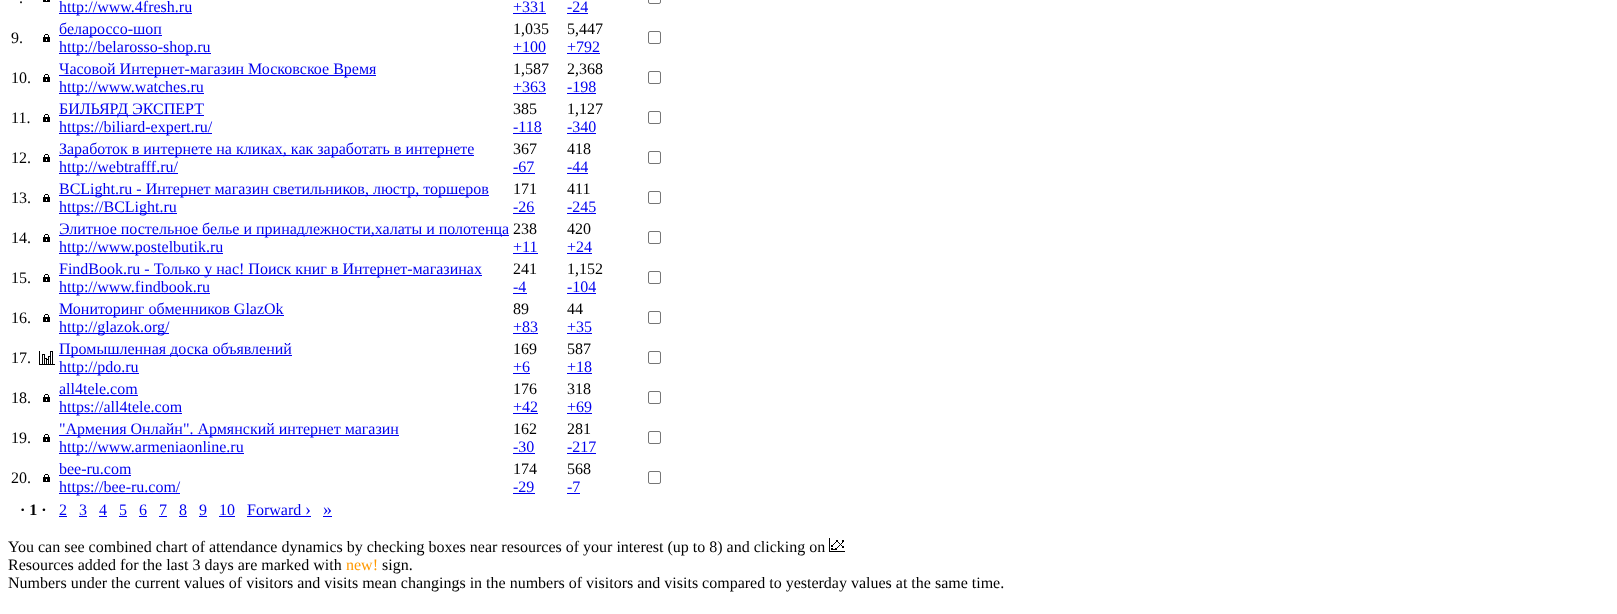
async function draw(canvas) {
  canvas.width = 1617;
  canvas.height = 614;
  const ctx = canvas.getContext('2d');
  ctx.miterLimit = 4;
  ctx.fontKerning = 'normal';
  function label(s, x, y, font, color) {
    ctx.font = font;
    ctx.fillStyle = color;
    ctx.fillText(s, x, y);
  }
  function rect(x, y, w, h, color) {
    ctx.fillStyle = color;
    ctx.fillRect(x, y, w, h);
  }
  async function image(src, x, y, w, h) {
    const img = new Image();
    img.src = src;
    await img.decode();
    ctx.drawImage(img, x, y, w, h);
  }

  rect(0, 0, 1617, 614, '#fff');
  label('.', 19, 3, '16px Liberation Serif', '#000');
  await image('assets/img1.png', 43, 0, 7, 2);
  rect(59, 13, 133, 1, '#00e');
  label('http://www.4fresh.ru', 59, 12, '16px Liberation Serif', '#00e');
  label('+331', 513, 12, '16px Liberation Serif', '#00e');
  rect(513, 13, 33, 1, '#00e');
  label('-24', 567, 12, '16px Liberation Serif', '#00e');
  rect(567, 13, 21, 1, '#00e');
  ctx.beginPath();
  ctx.roundRect(648.5, -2.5, 12, 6, 1.5);
  ctx.strokeStyle = '#767676';
  ctx.stroke();
  label('9.', 11, 43, '16px Liberation Serif', '#000');
  await image('assets/img2.png', 43, 34, 7, 8);
  rect(59, 35, 103, 1, '#00e');
  label('белароссо-шоп', 59, 34, '16px Liberation Serif', '#00e');
  rect(59, 53, 152, 1, '#00e');
  label('http://belarosso-shop.ru', 59, 52, '16px Liberation Serif', '#00e');
  label('1,035', 513, 34, '16px Liberation Serif', '#000');
  label('+100', 513, 52, '16px Liberation Serif', '#00e');
  rect(513, 53, 33, 1, '#00e');
  label('5,447', 567, 34, '16px Liberation Serif', '#000');
  label('+792', 567, 52, '16px Liberation Serif', '#00e');
  rect(567, 53, 33, 1, '#00e');
  ctx.beginPath();
  ctx.roundRect(648.5, 31.5, 12, 12, 1.5);
  ctx.stroke();
  label('10.', 11, 83, '16px Liberation Serif', '#000');
  await image('assets/img2.png', 43, 74, 7, 8);
  rect(59, 75, 317, 1, '#00e');
  label('Часовой Интернет-магазин Московское Время', 59, 74, '16px Liberation Serif', '#00e');
  rect(59, 93, 145, 1, '#00e');
  label('http://www.watches.ru', 59, 92, '16px Liberation Serif', '#00e');
  label('1,587', 513, 74, '16px Liberation Serif', '#000');
  label('+363', 513, 92, '16px Liberation Serif', '#00e');
  rect(513, 93, 33, 1, '#00e');
  label('2,368', 567, 74, '16px Liberation Serif', '#000');
  label('-198', 567, 92, '16px Liberation Serif', '#00e');
  rect(567, 93, 29, 1, '#00e');
  ctx.beginPath();
  ctx.roundRect(648.5, 71.5, 12, 12, 1.5);
  ctx.stroke();
  label('11.', 11, 123, '16px Liberation Serif', '#000');
  await image('assets/img2.png', 43, 114, 7, 8);
  rect(59, 115, 145, 1, '#00e');
  label('БИЛЬЯРД ЭКСПЕРТ', 59, 114, '16px Liberation Serif', '#00e');
  rect(59, 133, 153, 1, '#00e');
  label('https://biliard-expert.ru/', 59, 132, '16px Liberation Serif', '#00e');
  label('385', 513, 114, '16px Liberation Serif', '#000');
  label('-118', 513, 132, '16px Liberation Serif', '#00e');
  rect(513, 133, 29, 1, '#00e');
  label('1,127', 567, 114, '16px Liberation Serif', '#000');
  label('-340', 567, 132, '16px Liberation Serif', '#00e');
  rect(567, 133, 29, 1, '#00e');
  ctx.beginPath();
  ctx.roundRect(648.5, 111.5, 12, 12, 1.5);
  ctx.stroke();
  label('12.', 11, 163, '16px Liberation Serif', '#000');
  await image('assets/img2.png', 43, 154, 7, 8);
  rect(59, 155, 415, 1, '#00e');
  label('Заработок в интернете на кликах, как заработать в интернете', 59, 154, '16px Liberation Serif', '#00e');
  rect(59, 173, 119, 1, '#00e');
  label('http://webtrafff.ru/', 59, 172, '16px Liberation Serif', '#00e');
  label('367', 513, 154, '16px Liberation Serif', '#000');
  label('-67', 513, 172, '16px Liberation Serif', '#00e');
  rect(513, 173, 22, 1, '#00e');
  label('418', 567, 154, '16px Liberation Serif', '#000');
  label('-44', 567, 172, '16px Liberation Serif', '#00e');
  rect(567, 173, 21, 1, '#00e');
  ctx.beginPath();
  ctx.roundRect(648.5, 151.5, 12, 12, 1.5);
  ctx.stroke();
  label('13.', 11, 203, '16px Liberation Serif', '#000');
  await image('assets/img2.png', 43, 194, 7, 8);
  rect(59, 195, 430, 1, '#00e');
  label('BCLight.ru - Интернет магазин светильников, люстр, торшеров', 59, 194, '16px Liberation Serif', '#00e');
  rect(59, 213, 118, 1, '#00e');
  label('https://BCLight.ru', 59, 212, '16px Liberation Serif', '#00e');
  label('171', 513, 194, '16px Liberation Serif', '#000');
  label('-26', 513, 212, '16px Liberation Serif', '#00e');
  rect(513, 213, 22, 1, '#00e');
  label('411', 567, 194, '16px Liberation Serif', '#000');
  label('-245', 567, 212, '16px Liberation Serif', '#00e');
  rect(567, 213, 29, 1, '#00e');
  ctx.beginPath();
  ctx.roundRect(648.5, 191.5, 12, 12, 1.5);
  ctx.stroke();
  label('14.', 11, 243, '16px Liberation Serif', '#000');
  await image('assets/img2.png', 43, 234, 7, 8);
  rect(59, 235, 450, 1, '#00e');
  label('Элитное постельное белье и принадлежности,халаты и полотенца', 59, 234, '16px Liberation Serif', '#00e');
  rect(59, 253, 164, 1, '#00e');
  label('http://www.postelbutik.ru', 59, 252, '16px Liberation Serif', '#00e');
  label('238', 513, 234, '16px Liberation Serif', '#000');
  label('+11', 513, 252, '16px Liberation Serif', '#00e');
  rect(513, 253, 25, 1, '#00e');
  label('420', 567, 234, '16px Liberation Serif', '#000');
  label('+24', 567, 252, '16px Liberation Serif', '#00e');
  rect(567, 253, 25, 1, '#00e');
  ctx.beginPath();
  ctx.roundRect(648.5, 231.5, 12, 12, 1.5);
  ctx.stroke();
  label('15.', 11, 283, '16px Liberation Serif', '#000');
  await image('assets/img2.png', 43, 274, 7, 8);
  rect(59, 275, 423, 1, '#00e');
  label('FindBook.ru - Только у нас! Поиск книг в Интернет-магазинах', 59, 274, '16px Liberation Serif', '#00e');
  rect(59, 293, 151, 1, '#00e');
  label('http://www.findbook.ru', 59, 292, '16px Liberation Serif', '#00e');
  label('241', 513, 274, '16px Liberation Serif', '#000');
  label('-4', 513, 292, '16px Liberation Serif', '#00e');
  rect(513, 293, 14, 1, '#00e');
  label('1,152', 567, 274, '16px Liberation Serif', '#000');
  label('-104', 567, 292, '16px Liberation Serif', '#00e');
  rect(567, 293, 29, 1, '#00e');
  ctx.beginPath();
  ctx.roundRect(648.5, 271.5, 12, 12, 1.5);
  ctx.stroke();
  label('16.', 11, 323, '16px Liberation Serif', '#000');
  await image('assets/img2.png', 43, 314, 7, 8);
  rect(59, 315, 225, 1, '#00e');
  label('Мониторинг обменников GlazOk', 59, 314, '16px Liberation Serif', '#00e');
  rect(59, 333, 110, 1, '#00e');
  label('http://glazok.org/', 59, 332, '16px Liberation Serif', '#00e');
  label('89', 513, 314, '16px Liberation Serif', '#000');
  label('+83', 513, 332, '16px Liberation Serif', '#00e');
  rect(513, 333, 25, 1, '#00e');
  label('44', 567, 314, '16px Liberation Serif', '#000');
  label('+35', 567, 332, '16px Liberation Serif', '#00e');
  rect(567, 333, 25, 1, '#00e');
  ctx.beginPath();
  ctx.roundRect(648.5, 311.5, 12, 12, 1.5);
  ctx.stroke();
  label('17.', 11, 363, '16px Liberation Serif', '#000');
  await image('assets/img3.png', 39, 351, 16, 14);
  rect(59, 355, 233, 1, '#00e');
  label('Промышленная доска объявлений', 59, 354, '16px Liberation Serif', '#00e');
  rect(59, 373, 80, 1, '#00e');
  label('http://pdo.ru', 59, 372, '16px Liberation Serif', '#00e');
  label('169', 513, 354, '16px Liberation Serif', '#000');
  label('+6', 513, 372, '16px Liberation Serif', '#00e');
  rect(513, 373, 17, 1, '#00e');
  label('587', 567, 354, '16px Liberation Serif', '#000');
  label('+18', 567, 372, '16px Liberation Serif', '#00e');
  rect(567, 373, 25, 1, '#00e');
  ctx.beginPath();
  ctx.roundRect(648.5, 351.5, 12, 12, 1.5);
  ctx.stroke();
  label('18.', 11, 403, '16px Liberation Serif', '#000');
  await image('assets/img2.png', 43, 394, 7, 8);
  label('all4tele.com', 59, 394, '16px Liberation Serif', '#00e');
  rect(59, 395, 79, 1, '#00e');
  rect(59, 413, 123, 1, '#00e');
  label('https://all4tele.com', 59, 412, '16px Liberation Serif', '#00e');
  label('176', 513, 394, '16px Liberation Serif', '#000');
  label('+42', 513, 412, '16px Liberation Serif', '#00e');
  rect(513, 413, 25, 1, '#00e');
  label('318', 567, 394, '16px Liberation Serif', '#000');
  label('+69', 567, 412, '16px Liberation Serif', '#00e');
  rect(567, 413, 25, 1, '#00e');
  ctx.beginPath();
  ctx.roundRect(648.5, 391.5, 12, 12, 1.5);
  ctx.stroke();
  label('19.', 11, 443, '16px Liberation Serif', '#000');
  await image('assets/img2.png', 43, 434, 7, 8);
  rect(59, 435, 340, 1, '#00e');
  label('"Армения Онлайн". Армянский интернет магазин', 59, 434, '16px Liberation Serif', '#00e');
  rect(59, 453, 185, 1, '#00e');
  label('http://www.armeniaonline.ru', 59, 452, '16px Liberation Serif', '#00e');
  label('162', 513, 434, '16px Liberation Serif', '#000');
  label('-30', 513, 452, '16px Liberation Serif', '#00e');
  rect(513, 453, 22, 1, '#00e');
  label('281', 567, 434, '16px Liberation Serif', '#000');
  label('-217', 567, 452, '16px Liberation Serif', '#00e');
  rect(567, 453, 29, 1, '#00e');
  ctx.beginPath();
  ctx.roundRect(648.5, 431.5, 12, 12, 1.5);
  ctx.stroke();
  label('20.', 11, 483, '16px Liberation Serif', '#000');
  await image('assets/img2.png', 43, 474, 7, 8);
  label('bee-ru.com', 59, 474, '16px Liberation Serif', '#00e');
  rect(59, 475, 72, 1, '#00e');
  rect(59, 493, 121, 1, '#00e');
  label('https://bee-ru.com/', 59, 492, '16px Liberation Serif', '#00e');
  label('174', 513, 474, '16px Liberation Serif', '#000');
  label('-29', 513, 492, '16px Liberation Serif', '#00e');
  rect(513, 493, 22, 1, '#00e');
  label('568', 567, 474, '16px Liberation Serif', '#000');
  label('-7', 567, 492, '16px Liberation Serif', '#00e');
  rect(567, 493, 13, 1, '#00e');
  ctx.beginPath();
  ctx.roundRect(648.5, 471.5, 12, 12, 1.5);
  ctx.stroke();
  label('· 1 ·', 20, 515, 'bold 16px Liberation Serif', '#000');
  label('2', 59, 515, '16px Liberation Serif', '#00e');
  rect(59, 516, 8, 1, '#00e');
  label('3', 79, 515, '16px Liberation Serif', '#00e');
  rect(79, 516, 8, 1, '#00e');
  label('4', 99, 515, '16px Liberation Serif', '#00e');
  rect(99, 516, 8, 1, '#00e');
  label('5', 119, 515, '16px Liberation Serif', '#00e');
  rect(119, 516, 8, 1, '#00e');
  label('6', 139, 515, '16px Liberation Serif', '#00e');
  rect(139, 516, 8, 1, '#00e');
  label('7', 159, 515, '16px Liberation Serif', '#00e');
  rect(159, 516, 8, 1, '#00e');
  label('8', 179, 515, '16px Liberation Serif', '#00e');
  rect(179, 516, 8, 1, '#00e');
  label('9', 199, 515, '16px Liberation Serif', '#00e');
  rect(199, 516, 8, 1, '#00e');
  label('10', 219, 515, '16px Liberation Serif', '#00e');
  rect(219, 516, 16, 1, '#00e');
  label('Forward', 247, 515, '16px Liberation Serif', '#00e');
  label('›', 305, 515, '18px Liberation Serif', '#00e');
  rect(247, 516, 64, 1, '#00e');
  label('»', 323, 515, '18px Liberation Serif', '#00e');
  rect(323, 516, 9, 1, '#00e');
  label('You can see combined chart of attendance dynamics by checking boxes near resources of your interest (up to 8) and clicking on', 8, 552, '16px Liberation Serif', '#000');
  await image('assets/img4.png', 829, 538, 16, 14);
  label('Resources added for the last 3 days are marked with', 8, 570, '16px Liberation Serif', '#000');
  label('new!', 346, 570, '16px Liberation Serif', '#f90');
  label('sign.', 382, 570, '16px Liberation Serif', '#000');
  label('Numbers under the current values of visitors and visits mean changings in the numbers of visitors and visits compared to yesterday values at the same time.', 8, 588, '16px Liberation Serif', '#000');
}

draw(document.querySelector('canvas'));
